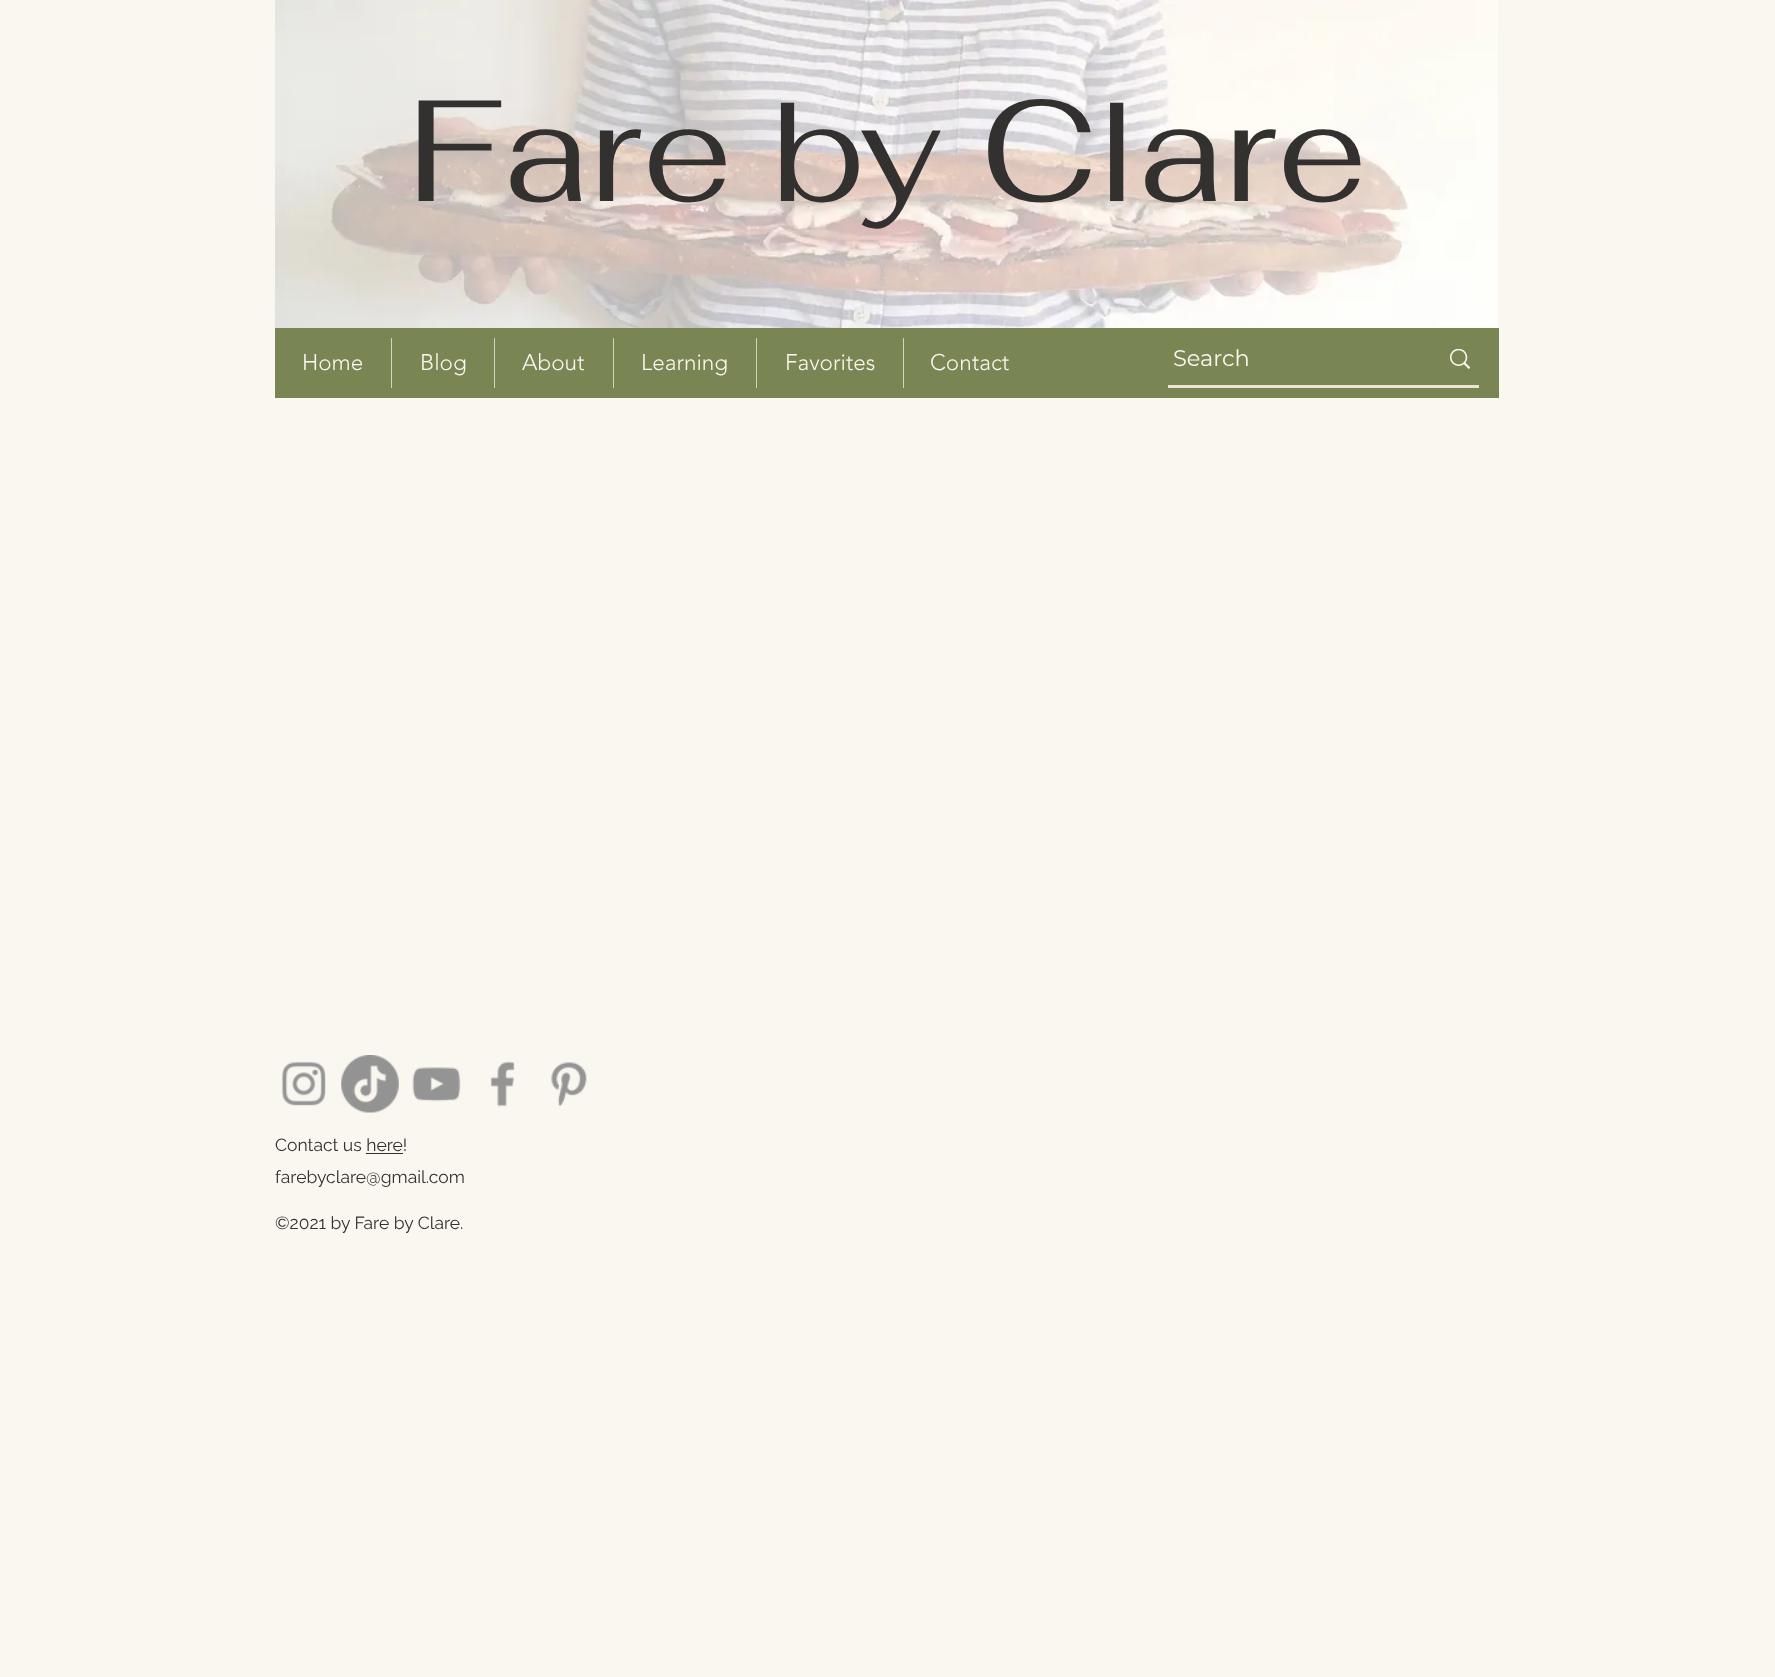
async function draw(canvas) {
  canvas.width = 1775;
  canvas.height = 1677;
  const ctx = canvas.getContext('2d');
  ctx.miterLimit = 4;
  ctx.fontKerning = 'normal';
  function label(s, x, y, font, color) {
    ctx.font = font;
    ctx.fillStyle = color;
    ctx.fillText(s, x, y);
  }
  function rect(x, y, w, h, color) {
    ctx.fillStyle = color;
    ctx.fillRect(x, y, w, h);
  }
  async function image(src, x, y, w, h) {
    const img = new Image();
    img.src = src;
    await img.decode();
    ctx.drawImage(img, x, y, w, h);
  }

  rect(0, 0, 1775, 1677, '#faf6f0');
  await image('assets/img1.png', 275, 0, 1223, 328);
  label('Fare by Clare', 408, 201, '143.75px Fahkwang', '#323130');
  rect(275, 328, 1224, 70, '#798654');
  label('Home', 302, 370, '300 22.5px "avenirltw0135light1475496"', '#faf6f0');
  rect(391, 338, 1, 50, '#d2d3c0');
  label('Blog', 420, 370, '300 22.5px "avenirltw0135light1475496"', '#faf6f0');
  rect(494, 338, 1, 50, '#d2d3c0');
  label('About', 522, 370, '300 22.5px "avenirltw0135light1475496"', '#faf6f0');
  rect(613, 338, 1, 50, '#d2d3c0');
  label('Learning', 641, 370, '300 22.5px "avenirltw0135light1475496"', '#faf6f0');
  rect(756, 338, 1, 50, '#d2d3c0');
  label('Favorites', 785, 370, '300 22.5px "avenirltw0135light1475496"', '#faf6f0');
  rect(903, 338, 1, 50, '#d2d3c0');
  label('Contact', 930, 370, '300 22.5px "avenirltw0135light1475496"', '#faf6f0');
  rect(1168, 385, 311, 3, '#ebe5d6');
  label('Search', 1173, 366, '22.5px Montserrat', '#faf6f0');
  await image('assets/img2.png', 1450, 349, 20, 20);
  await image('assets/img3.png', 281, 1061, 45, 45);
  await image('assets/img4.png', 341, 1055, 58, 58);
  await image('assets/img5.png', 412, 1067, 49, 35);
  await image('assets/img6.png', 490, 1061, 25, 46);
  await image('assets/img7.png', 551, 1062, 36, 45);
  label('Contact us here!', 275, 1151, '17.5px Raleway', '#323130');
  rect(366, 1153, 37, 1, '#323130');
  label('farebyclare@gmail.com', 275, 1183, '17.5px Raleway', '#323130');
  label('©2021 by Fare by Clare.', 275, 1229, '17.5px Raleway', '#323130');
}

draw(document.querySelector('canvas'));
